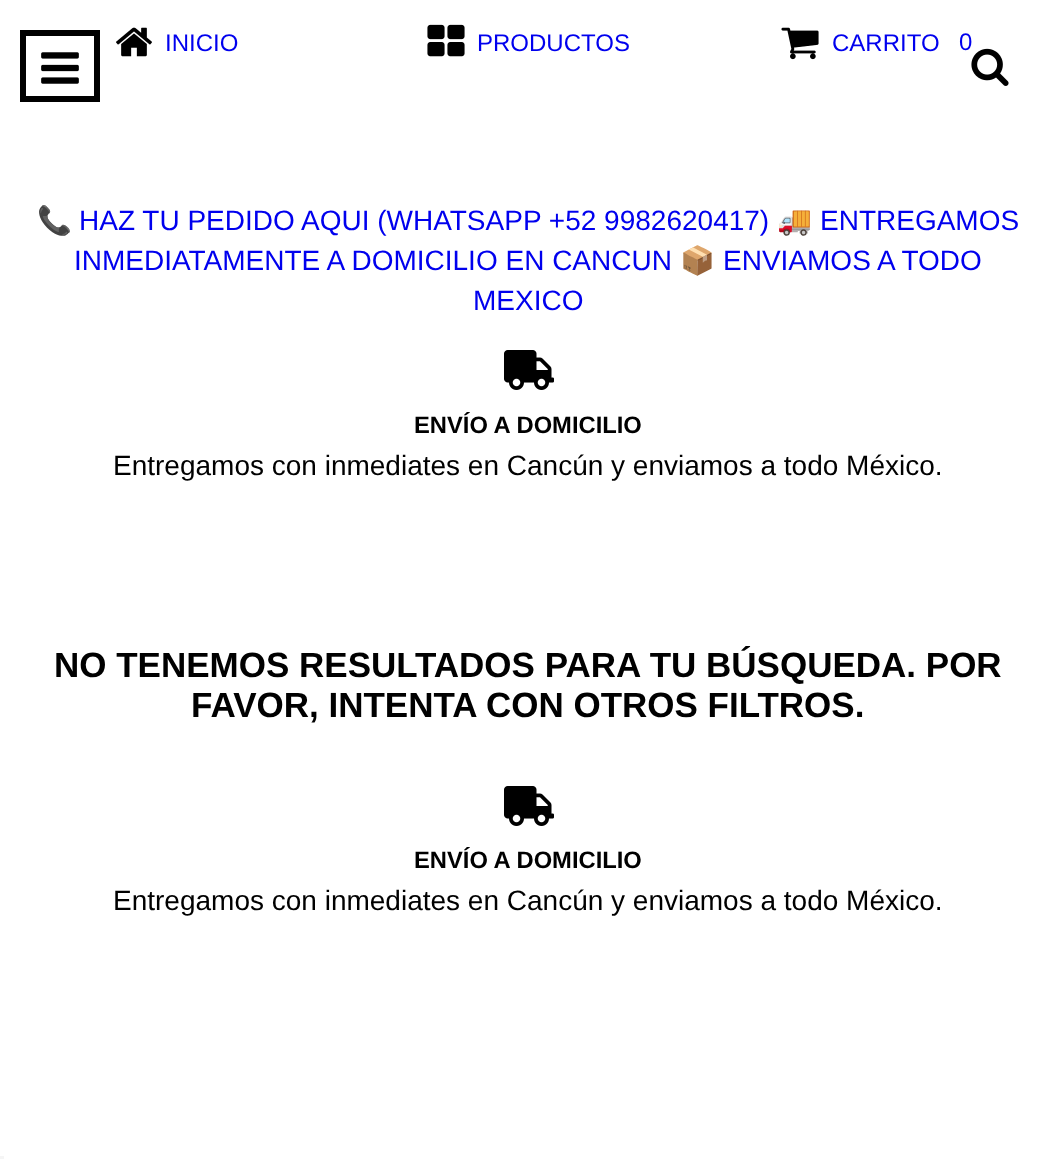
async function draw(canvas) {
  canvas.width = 1055;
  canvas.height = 1159;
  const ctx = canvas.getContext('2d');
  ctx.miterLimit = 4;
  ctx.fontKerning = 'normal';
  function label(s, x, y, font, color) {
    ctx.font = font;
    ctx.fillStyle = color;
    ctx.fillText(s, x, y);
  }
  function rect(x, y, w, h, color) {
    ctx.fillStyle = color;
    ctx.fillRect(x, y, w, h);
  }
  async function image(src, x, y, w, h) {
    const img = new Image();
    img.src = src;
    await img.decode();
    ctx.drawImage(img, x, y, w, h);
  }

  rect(0, 0, 1055, 1159, '#fff');
  ctx.strokeStyle = '#000';
  ctx.lineWidth = 6;
  ctx.strokeRect(23, 33, 74, 66);
  await image('assets/img1.png', 41, 52, 38, 32);
  label('0', 959, 50, '24px Liberation Sans', '#00e');
  await image('assets/img2.png', 971, 48, 38, 38);
  await image('assets/img3.png', 116, 27, 36, 30);
  label('INICIO', 165, 51, '24px Liberation Sans', '#00e');
  await image('assets/img4.png', 427, 24, 38, 33);
  label('PRODUCTOS', 477, 51, '24px Liberation Sans', '#00e');
  await image('assets/img5.png', 781, 27, 38, 33);
  label('CARRITO', 832, 51, '24px Liberation Sans', '#00e');
  label('📞', 37, 230, '28px Noto Color Emoji', '#00e');
  label('HAZ TU PEDIDO AQUI (WHATSAPP +52 9982620417)', 79, 230, '28px Liberation Sans', '#00e');
  label('🚚', 777, 230, '28px Noto Color Emoji', '#00e');
  label('ENTREGAMOS', 820, 230, '28px Liberation Sans', '#00e');
  label('INMEDIATAMENTE A DOMICILIO EN CANCUN', 74, 270, '28px Liberation Sans', '#00e');
  label('📦', 680, 270, '28px Noto Color Emoji', '#00e');
  label('ENVIAMOS A TODO', 723, 270, '28px Liberation Sans', '#00e');
  label('MEXICO', 473, 310, '28px Liberation Sans', '#00e');
  await image('assets/img6.png', 504, 350, 50, 40);
  label('ENVÍO A DOMICILIO', 414, 433, 'bold 23.75px Liberation Sans', '#000');
  label('Entregamos con inmediates en Cancún y enviamos a todo México.', 113, 475, '28px Liberation Sans', '#000');
  label('NO TENEMOS RESULTADOS PARA TU BÚSQUEDA. POR', 54, 677, 'bold 35px Liberation Sans', '#000');
  label('FAVOR, INTENTA CON OTROS FILTROS.', 191, 717, 'bold 35px Liberation Sans', '#000');
  await image('assets/img6.png', 504, 786, 50, 40);
  label('ENVÍO A DOMICILIO', 414, 868, 'bold 23.75px Liberation Sans', '#000');
  label('Entregamos con inmediates en Cancún y enviamos a todo México.', 113, 910, '28px Liberation Sans', '#000');
  rect(0, 1156, 4, 3, '#f5f5f5');
}

draw(document.querySelector('canvas'));
